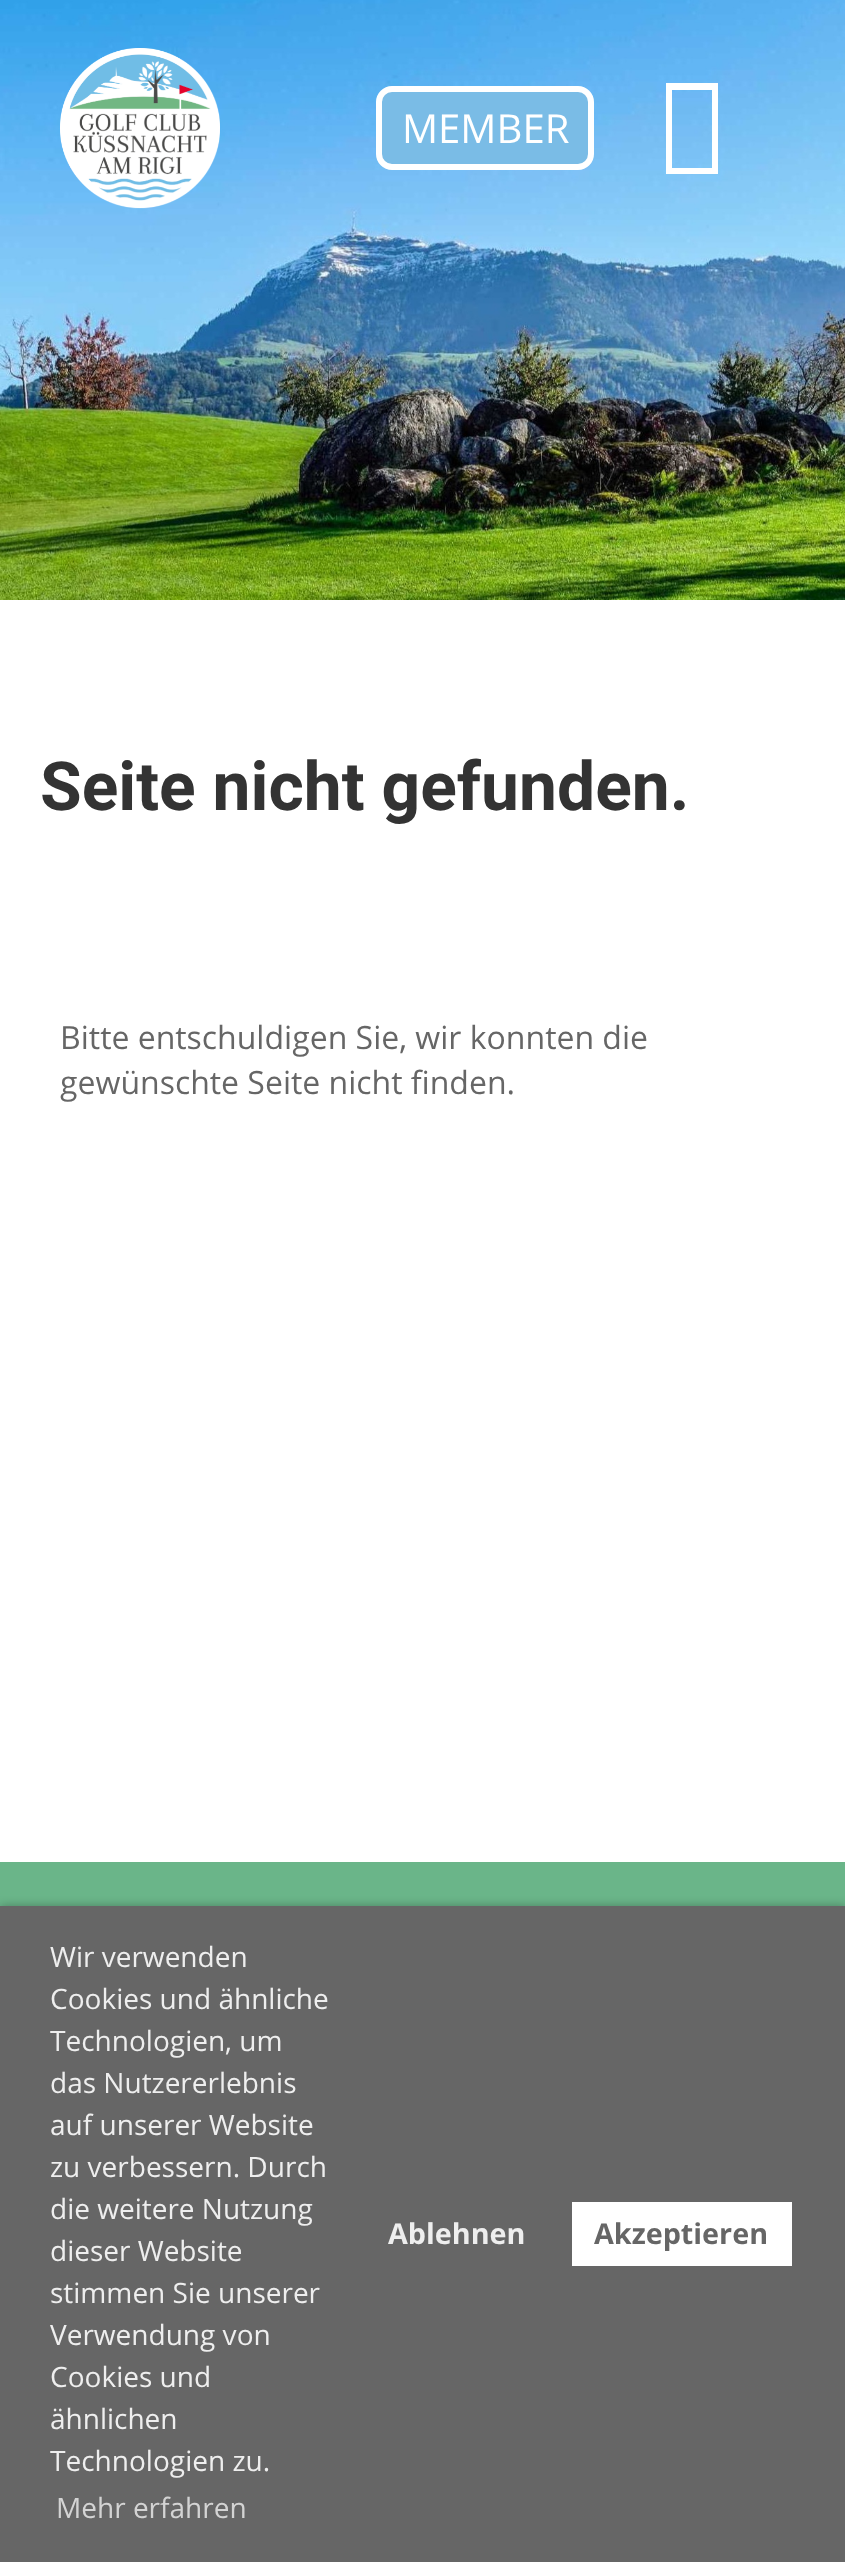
async function draw(canvas) {
  canvas.width = 845;
  canvas.height = 2562;
  const ctx = canvas.getContext('2d');
  ctx.miterLimit = 4;
  ctx.fontKerning = 'normal';
  function label(s, x, y, font, color) {
    ctx.font = font;
    ctx.fillStyle = color;
    ctx.fillText(s, x, y);
  }
  function rect(x, y, w, h, color) {
    ctx.fillStyle = color;
    ctx.fillRect(x, y, w, h);
  }
  async function image(src, x, y, w, h) {
    const img = new Image();
    img.src = src;
    await img.decode();
    ctx.drawImage(img, x, y, w, h);
  }
  let path;

  rect(0, 0, 845, 2562, '#fff');
  await image('assets/img2.png', 0, 0, 845, 600);
  await image('assets/img1.png', 60, 48, 160, 161);
  ctx.fillStyle = '#7abce6';
  ctx.beginPath();
  ctx.roundRect(379, 89, 212, 78, 13);
  ctx.fill();
  ctx.strokeStyle = '#fff';
  ctx.lineWidth = 6;
  ctx.stroke();
  label('MEMBER', 402, 143, '40px Open Sans', '#fff');
  path = new Path2D('M666 174V83H718V174ZM672 168H712V90H672Z');
  ctx.fill(path);
  label('Seite nicht gefunden.', 40, 810, 'bold 67.75px Roboto', '#333');
  label('Bitte entschuldigen Sie, wir konnten die', 60, 1049, '32px Open Sans', '#666');
  label('gewünschte Seite nicht finden.', 60, 1094, '32px Open Sans', '#666');
  rect(0, 1862, 845, 44, '#6ab589');
  ctx.fillStyle = '#0000004d';
  ctx.filter = 'blur(5px)';
  ctx.beginPath();
  ctx.rect(0, 1906, 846, 656);
  ctx.fill();
  ctx.filter = 'none';
  rect(0, 1906, 845, 656, '#666');
  label('Wir verwenden', 50, 1967, '28px Open Sans', '#eee');
  label('Cookies und ähnliche', 50, 2009, '28px Open Sans', '#eee');
  label('Technologien, um', 50, 2051, '28px Open Sans', '#eee');
  label('das Nutzererlebnis', 50, 2093, '28px Open Sans', '#eee');
  label('auf unserer Website', 50, 2135, '28px Open Sans', '#eee');
  label('zu verbessern. Durch', 50, 2177, '28px Open Sans', '#eee');
  label('die weitere Nutzung', 50, 2219, '28px Open Sans', '#eee');
  label('dieser Website', 50, 2261, '28px Open Sans', '#eee');
  label('stimmen Sie unserer', 50, 2303, '28px Open Sans', '#eee');
  label('Verwendung von', 50, 2345, '28px Open Sans', '#eee');
  label('Cookies und', 50, 2387, '28px Open Sans', '#eee');
  label('ähnlichen', 50, 2429, '28px Open Sans', '#eee');
  label('Technologien zu.', 50, 2471, '28px Open Sans', '#eee');
  label('Mehr erfahren', 56, 2518, '28px Open Sans', '#d3d3d3');
  label('Ablehnen', 388, 2244, 'bold 28.75px Open Sans', '#eee');
  rect(572, 2202, 220, 64, '#fff');
  label('Akzeptieren', 594, 2244, 'bold 28.75px Open Sans', '#666');
}

draw(document.querySelector('canvas'));
